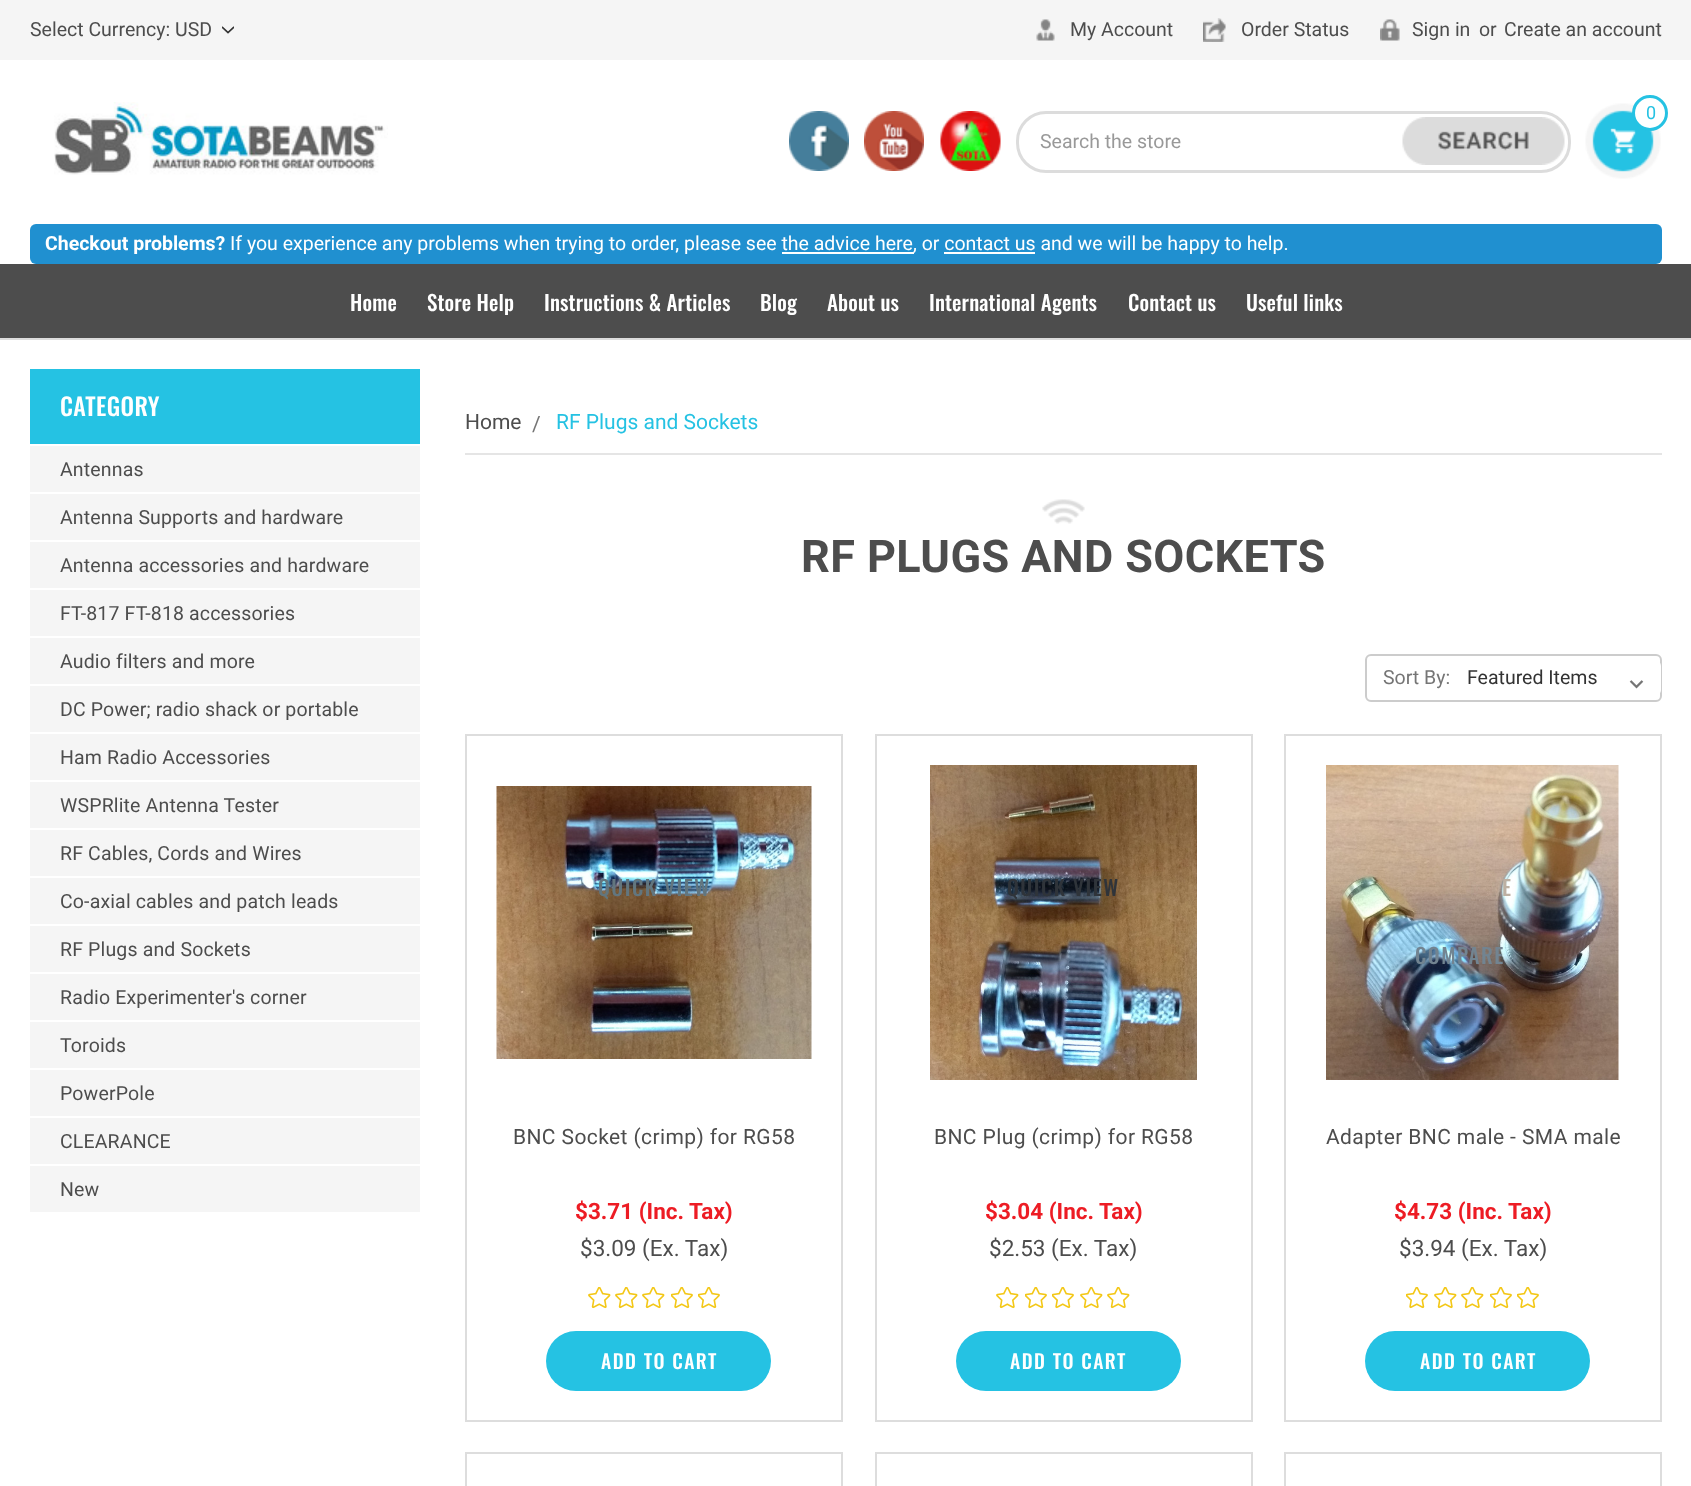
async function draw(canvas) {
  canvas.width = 1691;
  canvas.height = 1486;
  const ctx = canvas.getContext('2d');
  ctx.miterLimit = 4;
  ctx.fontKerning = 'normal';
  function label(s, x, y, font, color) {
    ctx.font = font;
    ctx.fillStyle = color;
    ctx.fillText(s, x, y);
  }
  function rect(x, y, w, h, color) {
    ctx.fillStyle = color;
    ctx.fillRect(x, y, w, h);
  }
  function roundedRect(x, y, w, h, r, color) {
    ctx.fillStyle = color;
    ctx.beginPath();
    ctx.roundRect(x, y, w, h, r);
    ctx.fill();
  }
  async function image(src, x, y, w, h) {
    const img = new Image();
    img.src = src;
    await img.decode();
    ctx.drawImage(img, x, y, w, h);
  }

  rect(0, 0, 1691, 1486, '#fff');
  rect(0, 338, 1691, 2, '#dcdcdc');
  rect(0, 0, 1691, 60, '#f5f5f5');
  label('Select Currency: USD', 30, 36, '19.5px Roboto', '#4d4d4d');
  await image('assets/img1.png', 222, 26, 12, 8);
  await image('assets/img2.png', 1036, 19, 19, 22);
  label('My Account', 1070, 36, '19.5px Roboto', '#4d4d4d');
  await image('assets/img3.png', 1203, 18, 23, 24);
  label('Order Status', 1241, 36, '19.5px Roboto', '#4d4d4d');
  await image('assets/img4.png', 1380, 19, 20, 22);
  label('Sign in', 1412, 36, '19.5px Roboto', '#4d4d4d');
  label('or', 1479, 36, '19.5px Roboto', '#4d4d4d');
  label('Create an account', 1504, 36, '19.5px Roboto', '#4d4d4d');
  await image('assets/img5.png', 54, 102, 334, 73);
  await image('assets/img6.png', 789, 111, 60, 60);
  await image('assets/img7.png', 864, 111, 60, 60);
  await image('assets/img8.png', 940, 111, 61, 60);
  await image('assets/img9.png', 1402, 117, 163, 48);
  ctx.beginPath();
  ctx.roundRect(1017.5, 112.5, 552, 59, 28.5);
  ctx.strokeStyle = '#dcdcdc';
  ctx.lineWidth = 3;
  ctx.stroke();
  label('Search the store', 1040, 148, '19.5px Roboto', '#999');
  await image('assets/img10.png', 1585, 103, 76, 76);
  ctx.fillStyle = '#fff';
  ctx.beginPath();
  ctx.arc(1650, 113, 16.5, 0, 2 * Math.PI);
  ctx.fill();
  ctx.strokeStyle = '#25c2e3';
  ctx.stroke();
  label('0', 1646, 119, '18px Roboto', '#25c2e3');
  roundedRect(30, 224, 1632, 40, 6, '#2090d0');
  label('Checkout problems?', 45, 250, 'bold 19.5px Roboto', '#fff');
  label('If you experience any problems when trying to order, please see the advice here', 230, 250, '19.5px Roboto', '#fff');
  rect(782, 252, 132, 2, '#fff');
  label(', or contact us and we will be happy to help.', 913, 250, '19.5px Roboto', '#fff');
  rect(944, 252, 91, 2, '#fff');
  rect(0, 264, 1691, 74, '#4d4d4d');
  ctx.letterSpacing = '0.15px';
  label('Home', 350, 311, '500 21px Oswald', '#fff');
  label('Store Help', 427, 311, '500 21px Oswald', '#fff');
  label('Instructions & Articles', 544, 311, '500 21px Oswald', '#fff');
  label('Blog', 760, 311, '500 21px Oswald', '#fff');
  label('About us', 827, 311, '500 21px Oswald', '#fff');
  label('International Agents', 929, 311, '500 21px Oswald', '#fff');
  label('Contact us', 1128, 311, '500 21px Oswald', '#fff');
  label('Useful links', 1246, 311, '500 21px Oswald', '#fff');
  rect(30, 369, 390, 75, '#25c2e3');
  ctx.letterSpacing = '0.4px';
  label('CATEGORY', 60, 416, '500 24px Oswald', '#fff');
  rect(30, 446, 390, 766, '#f5f5f5');
  ctx.letterSpacing = '0.15px';
  label('Antennas', 60, 476, '19.5px Roboto', '#4d4d4d');
  rect(30, 492, 390, 2, '#fff');
  label('Antenna Supports and hardware', 60, 524, '19.5px Roboto', '#4d4d4d');
  rect(30, 540, 390, 2, '#fff');
  label('Antenna accessories and hardware', 60, 572, '19.5px Roboto', '#4d4d4d');
  rect(30, 588, 390, 2, '#fff');
  label('FT-817 FT-818 accessories', 60, 620, '19.5px Roboto', '#4d4d4d');
  rect(30, 636, 390, 2, '#fff');
  label('Audio filters and more', 60, 668, '19.5px Roboto', '#4d4d4d');
  rect(30, 684, 390, 2, '#fff');
  label('DC Power; radio shack or portable', 60, 716, '19.5px Roboto', '#4d4d4d');
  rect(30, 732, 390, 2, '#fff');
  label('Ham Radio Accessories', 60, 764, '19.5px Roboto', '#4d4d4d');
  rect(30, 780, 390, 2, '#fff');
  label('WSPRlite Antenna Tester', 60, 812, '19.5px Roboto', '#4d4d4d');
  rect(30, 828, 390, 2, '#fff');
  label('RF Cables, Cords and Wires', 60, 860, '19.5px Roboto', '#4d4d4d');
  rect(30, 876, 390, 2, '#fff');
  label('Co-axial cables and patch leads', 60, 908, '19.5px Roboto', '#4d4d4d');
  rect(30, 924, 390, 2, '#fff');
  label('RF Plugs and Sockets', 60, 956, '19.5px Roboto', '#4d4d4d');
  rect(30, 972, 390, 2, '#fff');
  label('Radio Experimenter\'s corner', 60, 1004, '19.5px Roboto', '#4d4d4d');
  rect(30, 1020, 390, 2, '#fff');
  label('Toroids', 60, 1052, '19.5px Roboto', '#4d4d4d');
  rect(30, 1068, 390, 2, '#fff');
  label('PowerPole', 60, 1100, '19.5px Roboto', '#4d4d4d');
  rect(30, 1116, 390, 2, '#fff');
  label('CLEARANCE', 60, 1148, '19.5px Roboto', '#4d4d4d');
  rect(30, 1164, 390, 2, '#fff');
  label('New', 60, 1196, '19.5px Roboto', '#4d4d4d');
  rect(465, 453, 1197, 2, '#e5e5e5');
  ctx.letterSpacing = '0px';
  label('Home', 465, 429, '21px Roboto', '#4d4d4d');
  label('/', 532, 431, '21px Roboto', '#757575');
  label('RF Plugs and Sockets', 556, 429, '21px Roboto', '#25c2e3');
  await image('assets/img11.png', 1042, 499, 43, 25);
  ctx.letterSpacing = '0.4px';
  label('RF PLUGS AND SOCKETS', 801, 572, 'bold 45px Roboto', '#4d4d4d');
  ctx.beginPath();
  ctx.roundRect(1366, 655, 295, 46, 5);
  ctx.strokeStyle = '#ccc';
  ctx.lineWidth = 2;
  ctx.stroke();
  ctx.letterSpacing = '0px';
  label('Sort By:', 1383, 684, '19.5px Roboto', '#757575');
  roundedRect(1463, 660, 198, 36, 6, '#fff');
  await image('assets/img12.png', 1629, 680, 15, 9);
  label('Featured Items', 1467, 684, '19.5px Roboto', '#333');
  ctx.strokeStyle = '#ddd';
  ctx.strokeRect(466, 735, 376, 686);
  await image('assets/img13.png', 496, 786, 316, 273);
  ctx.letterSpacing = '1.5px';
  label('QUICK VIEW', 598, 896, '500 21px Oswald', '#62767f');
  ctx.letterSpacing = '0.4px';
  label('BNC Socket (crimp) for RG58', 513, 1144, '21px Roboto', '#4d4d4d');
  ctx.letterSpacing = '0px';
  label('$3.71 (Inc. Tax)', 575, 1219, 'bold 22.5px Roboto', '#ed1c24');
  label('$3.09 (Ex. Tax)', 580, 1256, '22.5px Roboto', '#4d4d4d');
  await image('assets/img14.png', 588, 1287, 23, 22);
  await image('assets/img14.png', 615, 1287, 23, 22);
  await image('assets/img14.png', 642, 1287, 23, 22);
  await image('assets/img15.png', 671, 1287, 22, 22);
  await image('assets/img15.png', 698, 1287, 22, 22);
  roundedRect(546, 1331, 225, 60, 30, '#25c2e3');
  ctx.letterSpacing = '1.5px';
  label('ADD TO CART', 601, 1369, '500 19.5px Oswald', '#fff');
  ctx.strokeRect(876, 735, 376, 686);
  await image('assets/img16.png', 930, 765, 267, 315);
  label('QUICK VIEW', 1007, 896, '500 21px Oswald', '#2f343a');
  ctx.letterSpacing = '0.4px';
  label('BNC Plug (crimp) for RG58', 934, 1144, '21px Roboto', '#4d4d4d');
  ctx.letterSpacing = '0px';
  label('$3.04 (Inc. Tax)', 985, 1219, 'bold 22.5px Roboto', '#ed1c24');
  label('$2.53 (Ex. Tax)', 989, 1256, '22.5px Roboto', '#4d4d4d');
  await image('assets/img14.png', 996, 1287, 23, 22);
  await image('assets/img15.png', 1025, 1287, 22, 22);
  await image('assets/img15.png', 1052, 1287, 22, 22);
  await image('assets/img14.png', 1080, 1287, 23, 22);
  await image('assets/img14.png', 1107, 1287, 23, 22);
  roundedRect(956, 1331, 225, 60, 30, '#25c2e3');
  ctx.letterSpacing = '1.5px';
  label('ADD TO CART', 1010, 1369, '500 19.5px Oswald', '#fff');
  ctx.strokeRect(1285, 735, 376, 686);
  await image('assets/img17.png', 1326, 765, 293, 315);
  label('E', 1502, 896, '500 21px Oswald', '#bdb0a2');
  label('COMPARE', 1415, 964, '500 21px Oswald', '#728491');
  ctx.letterSpacing = '0.4px';
  label('Adapter BNC male - SMA male', 1326, 1144, '21px Roboto', '#4d4d4d');
  ctx.letterSpacing = '0px';
  label('$4.73 (Inc. Tax)', 1394, 1219, 'bold 22.5px Roboto', '#ed1c24');
  label('$3.94 (Ex. Tax)', 1399, 1256, '22.5px Roboto', '#4d4d4d');
  await image('assets/img15.png', 1406, 1287, 22, 22);
  await image('assets/img14.png', 1434, 1287, 23, 22);
  await image('assets/img14.png', 1461, 1287, 23, 22);
  await image('assets/img15.png', 1490, 1287, 22, 22);
  await image('assets/img15.png', 1517, 1287, 22, 22);
  roundedRect(1365, 1331, 225, 60, 30, '#25c2e3');
  ctx.letterSpacing = '1.5px';
  label('ADD TO CART', 1420, 1369, '500 19.5px Oswald', '#fff');
  ctx.strokeRect(466, 1453, 376, 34);
  ctx.strokeRect(876, 1453, 376, 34);
  ctx.strokeRect(1285, 1453, 376, 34);
}

draw(document.querySelector('canvas'));
